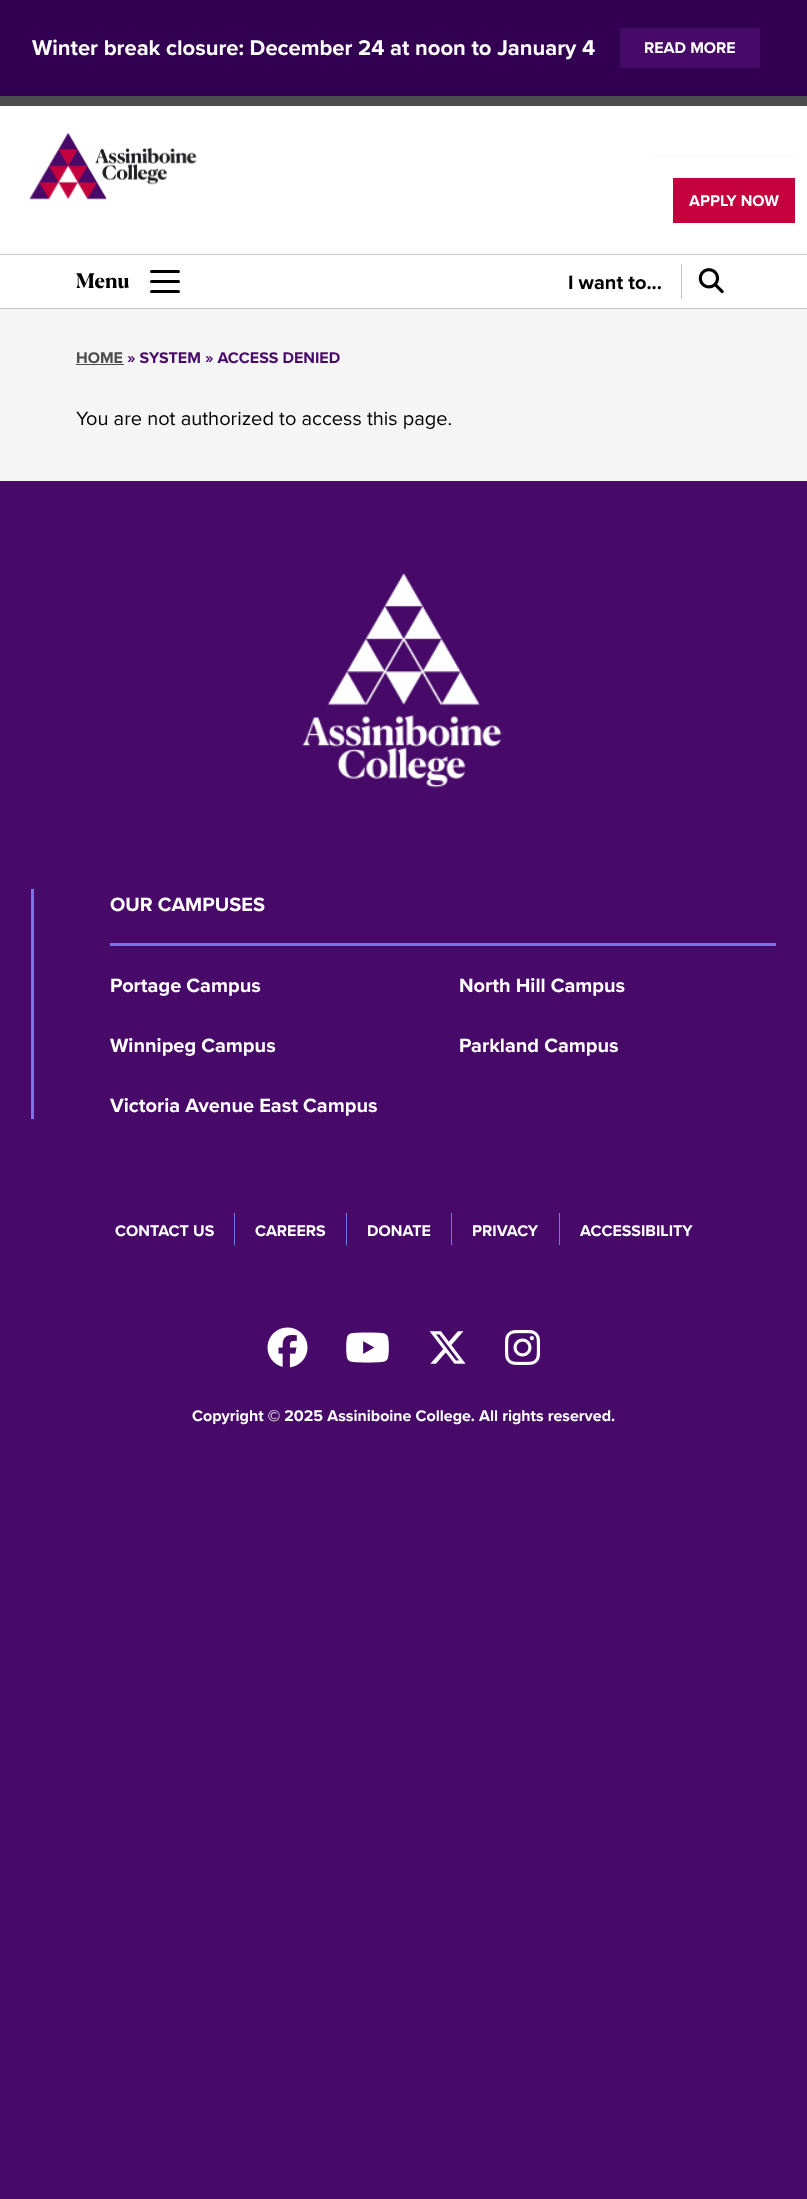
async function draw(canvas) {
  canvas.width = 807;
  canvas.height = 2199;
  const ctx = canvas.getContext('2d');
  ctx.miterLimit = 4;
  ctx.fontKerning = 'normal';
  function label(s, x, y, font, color) {
    ctx.font = font;
    ctx.fillStyle = color;
    ctx.fillText(s, x, y);
  }
  function rect(x, y, w, h, color) {
    ctx.fillStyle = color;
    ctx.fillRect(x, y, w, h);
  }
  function roundedRect(x, y, w, h, r, color) {
    ctx.fillStyle = color;
    ctx.beginPath();
    ctx.roundRect(x, y, w, h, r);
    ctx.fill();
  }
  async function image(src, x, y, w, h) {
    const img = new Image();
    img.src = src;
    await img.decode();
    ctx.drawImage(img, x, y, w, h);
  }

  rect(0, 0, 807, 2199, '#470a68');
  rect(0, 96, 807, 10, '#4c4c4c');
  rect(0, 0, 807, 96, '#320050');
  label('Winter break closure: December 24 at noon to January 4', 32, 55, 'bold 22px Proxima Nova', '#fff');
  rect(620, 28, 140, 40, '#470a68');
  label('READ MORE', 644, 53, 'bold 16px Proxima Nova', '#fff');
  rect(0, 106, 807, 148, '#fff');
  rect(0, 254, 807, 1, '#c7c7c7');
  await image('assets/img1.png', 29, 133, 168, 67);
  rect(653, 156, 142, 1, '#f5f5f5');
  rect(673, 178, 122, 45, '#c5003e');
  label('APPLY NOW', 689, 206, 'bold 16px Proxima Nova', '#fff');
  rect(0, 255, 807, 53, '#fff');
  rect(0, 308, 807, 1, '#c7c7c7');
  label('Menu', 76, 288, 'bold 20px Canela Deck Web', '#000');
  roundedRect(150, 280, 30, 3, 1.5, '#000');
  roundedRect(150, 270, 30, 3, 1.5, '#000');
  roundedRect(150, 290, 30, 3, 1.5, '#000');
  label('I want to...', 568, 289, 'bold 20px Proxima Nova', '#000');
  rect(681, 264, 1, 35, '#c7c7c7');
  await image('assets/img2.png', 698, 268, 26, 26);
  rect(0, 309, 807, 172, '#f5f5f5');
  label('HOME', 76, 363, 'bold 16px Proxima Nova', '#4c4c4c');
  rect(76, 364, 48, 1, '#4c4c4c');
  label('» SYSTEM » ACCESS DENIED', 127, 363, 'bold 16px Proxima Nova', '#470a68');
  label('You are not authorized to access this page.', 76, 425, '20px Proxima Nova', '#000');
  await image('assets/img3.png', 302, 573, 200, 215);
  rect(31, 889, 3, 230, '#7577e8');
  rect(110, 943, 666, 3, '#7577e8');
  label('OUR CAMPUSES', 110, 911, 'bold 20px Proxima Nova', '#fff');
  label('Portage Campus', 110, 992, 'bold 20px Proxima Nova', '#fff');
  label('North Hill Campus', 459, 992, 'bold 20px Proxima Nova', '#fff');
  label('Winnipeg Campus', 110, 1052, 'bold 20px Proxima Nova', '#fff');
  label('Parkland Campus', 459, 1052, 'bold 20px Proxima Nova', '#fff');
  label('Victoria Avenue East Campus', 110, 1112, 'bold 20px Proxima Nova', '#fff');
  rect(234, 1213, 1, 32, '#7577e8');
  label('CONTACT US', 115, 1236, 'bold 16px Proxima Nova', '#fff');
  rect(346, 1213, 1, 32, '#7577e8');
  label('CAREERS', 255, 1236, 'bold 16px Proxima Nova', '#fff');
  rect(451, 1213, 1, 32, '#7577e8');
  label('DONATE', 367, 1236, 'bold 16px Proxima Nova', '#fff');
  rect(559, 1213, 1, 32, '#7577e8');
  label('PRIVACY', 472, 1236, 'bold 16px Proxima Nova', '#fff');
  label('ACCESSIBILITY', 580, 1236, 'bold 16px Proxima Nova', '#fff');
  await image('assets/img4.png', 267, 1327, 41, 41);
  await image('assets/img5.png', 346, 1332, 43, 31);
  await image('assets/img6.png', 429, 1331, 37, 33);
  await image('assets/img7.png', 505, 1330, 35, 35);
  label('Copyright © 2025 Assiniboine College. All rights reserved.', 192, 1421, 'bold 16px Proxima Nova', '#fff');
}

draw(document.querySelector('canvas'));
